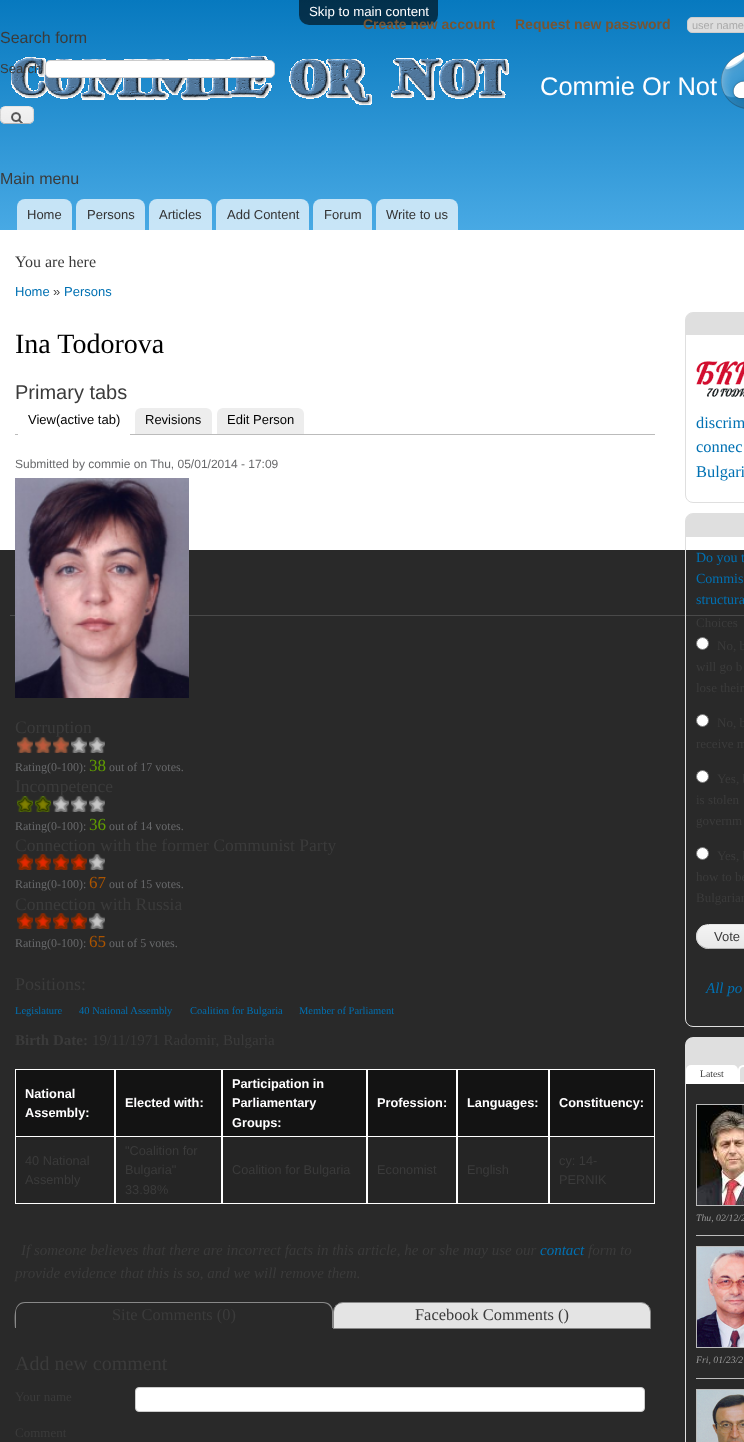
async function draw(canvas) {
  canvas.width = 744;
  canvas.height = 1442;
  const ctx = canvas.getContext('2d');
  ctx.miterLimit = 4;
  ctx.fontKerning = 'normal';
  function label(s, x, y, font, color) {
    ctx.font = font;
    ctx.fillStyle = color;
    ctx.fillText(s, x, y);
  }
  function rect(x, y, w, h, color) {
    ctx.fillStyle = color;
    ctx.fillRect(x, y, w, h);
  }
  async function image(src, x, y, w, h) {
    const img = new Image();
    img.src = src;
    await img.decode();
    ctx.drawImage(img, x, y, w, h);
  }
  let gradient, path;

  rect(0, 0, 744, 1442, '#fff');
  gradient = ctx.createLinearGradient(480, 0, 480, 230);
  gradient.addColorStop(0, '#0779bf');
  gradient.addColorStop(1, '#48a9e4');
  ctx.fillStyle = gradient;
  ctx.fillRect(0, 0, 744, 230);
  ctx.fillStyle = '#00000099';
  ctx.beginPath();
  ctx.roundRect(299, 0, 139, 25, [0, 0, 10, 10]);
  ctx.fill();
  label('Skip to main content', 309, 16, '13.25px Liberation Sans', '#fffeff');
  label('Create new account', 363, 29, 'bold 14px Liberation Sans', '#753');
  label('Request new password', 515, 29, 'bold 14px Liberation Sans', '#753');
  ctx.fillStyle = '#ddd';
  ctx.beginPath();
  ctx.roundRect(687.5, 17.5, 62, 15, 4.5);
  ctx.fill();
  ctx.strokeStyle = '#ccc';
  ctx.stroke();
  label('user name', 692, 29, '11px Liberation Sans', '#aaa');
  label('Search form', 0, 43, '16px Liberation Sans', '#3b3b3b');
  await image('assets/img2.png', 11, 56, 498, 49);
  label('Search', 0, 73, '13px Liberation Sans', '#3b3b3b');
  ctx.fillStyle = '#fff';
  ctx.beginPath();
  ctx.roundRect(45.5, 60.5, 229, 17, 4.5);
  ctx.fill();
  ctx.stroke();
  await image('assets/img1.png', 0, 107, 34, 17);
  path = new Path2D('M2 108C2.5 107 4 106.5 5 106.5H29C30 106.5 31.5 107 32 108');
  ctx.strokeStyle = '#e4e4e4';
  ctx.stroke(path);
  path = new Path2D('M32 108C34 109.5 33.5 112.5 33.5 115C33.5 117.5 34 120.5 32 122');
  ctx.strokeStyle = '#d2d2d2';
  ctx.stroke(path);
  path = new Path2D('M32 122C31.5 123 30 123.5 29 123.5H5C4 123.5 2.5 123 2 122');
  ctx.strokeStyle = '#b4b4b4';
  ctx.stroke(path);
  path = new Path2D('M2 122C0 120.5 .5 117.5 .5 115C.5 112.5 0 109.5 2 108');
  ctx.strokeStyle = '#d2d2d2';
  ctx.stroke(path);
  label('Commie Or Not', 540, 95, '25.5px Liberation Sans', '#fffeff');
  await image('assets/img3.png', 721, 51, 23, 58);
  label('Main menu', 0, 184, '16px Liberation Sans', '#3b3b3b');
  ctx.fillStyle = '#ffffffb3';
  ctx.beginPath();
  ctx.roundRect(17, 199, 55, 31, [8, 8, 0, 0]);
  ctx.fill();
  label('Home', 27, 219, '13px Liberation Sans', '#333');
  ctx.fillStyle = '#ffffffb3';
  ctx.beginPath();
  ctx.roundRect(76, 199, 69, 31, [8, 8, 0, 0]);
  ctx.fill();
  label('Persons', 87, 219, '13px Liberation Sans', '#333');
  ctx.fillStyle = '#ffffffb3';
  ctx.beginPath();
  ctx.roundRect(149, 199, 63, 31, [8, 8, 0, 0]);
  ctx.fill();
  label('Аrticles', 159, 219, '13px Liberation Sans', '#333');
  ctx.fillStyle = '#ffffffb3';
  ctx.beginPath();
  ctx.roundRect(216, 199, 93, 31, [8, 8, 0, 0]);
  ctx.fill();
  label('Add Content', 227, 219, '13px Liberation Sans', '#333');
  ctx.fillStyle = '#ffffffb3';
  ctx.beginPath();
  ctx.roundRect(313, 199, 59, 31, [8, 8, 0, 0]);
  ctx.fill();
  label('Forum', 324, 219, '13px Liberation Sans', '#333');
  ctx.fillStyle = '#ffffffb3';
  ctx.beginPath();
  ctx.roundRect(376, 199, 82, 31, [8, 8, 0, 0]);
  ctx.fill();
  label('Write to us', 386, 219, '13px Liberation Sans', '#333');
  label('You are here', 15, 267, '16px Liberation Serif', '#3b3b3b');
  label('Home', 15, 296, '13px Liberation Sans', '#0071b3');
  label('»', 53, 296, '13px Liberation Sans', '#3b3b3b');
  label('Persons', 64, 296, '13px Liberation Sans', '#0071b3');
  label('Ina Todorova', 15, 353, '28px Liberation Serif', '#000');
  label('Primary tabs', 15, 399, '20px Liberation Sans', '#3b3b3b');
  rect(15, 434, 640, 1, '#bbb');
  ctx.fillStyle = '#fff';
  ctx.beginPath();
  ctx.roundRect(18, 408, 112, 27, [6, 6, 0, 0]);
  ctx.fill();
  label('View(active tab)', 28, 424, '13px Liberation Sans', '#000');
  ctx.fillStyle = '#ededed';
  ctx.beginPath();
  ctx.roundRect(135, 408, 77, 26, [6, 6, 0, 0]);
  ctx.fill();
  label('Revisions', 145, 424, '13px Liberation Sans', '#000');
  ctx.fillStyle = '#ededed';
  ctx.beginPath();
  ctx.roundRect(217, 408, 87, 26, [6, 6, 0, 0]);
  ctx.fill();
  label('Edit Person', 227, 424, '13px Liberation Sans', '#000');
  label('Submitted by commie on Thu, 05/01/2014 - 17:09', 15, 468, '12px Liberation Sans', '#68696b');
  rect(0, 550, 744, 892, '#292929');
  rect(10, 615, 734, 1, '#494949');
  await image('assets/img4.png', 15, 478, 174, 220);
  label('Corruption', 15, 733, '17.5px Liberation Serif', '#3b3b3b');
  await image('assets/img5.png', 17, 737, 16, 16);
  await image('assets/img5.png', 35, 737, 16, 16);
  await image('assets/img5.png', 53, 737, 16, 16);
  await image('assets/img6.png', 71, 737, 16, 16);
  await image('assets/img6.png', 89, 737, 16, 16);
  label('Rating(0-100):', 15, 771, '12px Liberation Serif', '#68696b');
  label('38', 89, 771, '17px Liberation Serif', '#619e00');
  label('out of 17 votes.', 109, 771, '12px Liberation Serif', '#68696b');
  label('Incompetence', 15, 792, '17.5px Liberation Serif', '#3b3b3b');
  await image('assets/img7.png', 17, 796, 16, 16);
  await image('assets/img7.png', 35, 796, 16, 16);
  await image('assets/img6.png', 53, 796, 16, 16);
  await image('assets/img6.png', 71, 796, 16, 16);
  await image('assets/img6.png', 89, 796, 16, 16);
  label('Rating(0-100):', 15, 830, '12px Liberation Serif', '#68696b');
  label('36', 89, 830, '17px Liberation Serif', '#619e00');
  label('out of 14 votes.', 109, 830, '12px Liberation Serif', '#68696b');
  label('Connection with the former Communist Party', 15, 851, '17.5px Liberation Serif', '#3b3b3b');
  await image('assets/img8.png', 17, 854, 16, 16);
  await image('assets/img8.png', 35, 854, 16, 16);
  await image('assets/img8.png', 53, 854, 16, 16);
  await image('assets/img8.png', 71, 854, 16, 16);
  await image('assets/img6.png', 89, 854, 16, 16);
  label('Rating(0-100):', 15, 888, '12px Liberation Serif', '#68696b');
  label('67', 89, 888, '17px Liberation Serif', '#ab5400');
  label('out of 15 votes.', 109, 888, '12px Liberation Serif', '#68696b');
  label('Connection with Russia', 15, 910, '17.5px Liberation Serif', '#3b3b3b');
  await image('assets/img8.png', 17, 913, 16, 16);
  await image('assets/img8.png', 35, 913, 16, 16);
  await image('assets/img8.png', 53, 913, 16, 16);
  await image('assets/img8.png', 71, 913, 16, 16);
  await image('assets/img6.png', 89, 913, 16, 16);
  label('Rating(0-100):', 15, 947, '12px Liberation Serif', '#68696b');
  label('65', 89, 947, '17px Liberation Serif', '#ab5400');
  label('out of 5 votes.', 109, 947, '12px Liberation Serif', '#68696b');
  label('Positions:', 15, 990, '18px Liberation Serif', '#3b3b3b');
  label('Legislature', 15, 1014, '10.5px Liberation Serif', '#0071b3');
  label('40 National Assembly', 79, 1014, '10.5px Liberation Serif', '#0071b3');
  label('Coalition for Bulgaria', 190, 1014, '10.5px Liberation Serif', '#0071b3');
  label('Member of Parliament', 299, 1014, '10.5px Liberation Serif', '#0071b3');
  label('Birth Date:', 15, 1045, 'bold 15px Liberation Serif', '#3b3b3b');
  label('19/11/1971 Radomir, Bulgaria', 92, 1045, '15px Liberation Serif', '#3b3b3b');
  rect(16, 1070, 98, 66, '#131313');
  rect(15, 1069, 640, 1, '#fff');
  rect(114, 1069, 2, 67, '#fff');
  rect(15, 1069, 1, 67, '#fff');
  label('National', 25, 1098, 'bold 12.75px Liberation Sans', '#fffeff');
  label('Assembly:', 25, 1117, 'bold 12.75px Liberation Sans', '#fffeff');
  rect(116, 1070, 105, 66, '#131313');
  rect(221, 1069, 2, 67, '#fff');
  label('Elected with:', 125, 1107, 'bold 12.75px Liberation Sans', '#fffeff');
  rect(223, 1070, 143, 66, '#131313');
  rect(366, 1069, 2, 67, '#fff');
  label('Participation in', 232, 1088, 'bold 12.75px Liberation Sans', '#fffeff');
  label('Parliamentary', 232, 1107, 'bold 12.75px Liberation Sans', '#fffeff');
  label('Groups:', 232, 1127, 'bold 12.75px Liberation Sans', '#fffeff');
  rect(368, 1070, 88, 66, '#131313');
  rect(456, 1069, 2, 67, '#fff');
  label('Profession:', 377, 1107, 'bold 12.75px Liberation Sans', '#fffeff');
  rect(458, 1070, 90, 66, '#131313');
  rect(548, 1069, 2, 67, '#fff');
  label('Languages:', 467, 1107, 'bold 12.75px Liberation Sans', '#fffeff');
  rect(550, 1070, 104, 66, '#131313');
  rect(654, 1069, 1, 67, '#fff');
  label('Constituency:', 559, 1107, 'bold 12.75px Liberation Sans', '#fffeff');
  rect(16, 1137, 638, 66, '#252525');
  ctx.strokeStyle = '#fff';
  ctx.strokeRect(15.5, 1136.5, 99, 67);
  label('40 National', 25, 1165, '12.75px Liberation Sans', '#3b3b3b');
  label('Assembly', 25, 1184, '12.75px Liberation Sans', '#3b3b3b');
  ctx.strokeRect(115.5, 1136.5, 106, 67);
  label('"Coalition for', 125, 1155, '12.75px Liberation Sans', '#3b3b3b');
  label('Bulgaria"', 125, 1174, '12.75px Liberation Sans', '#3b3b3b');
  label('33.98%', 125, 1194, '12.75px Liberation Sans', '#3b3b3b');
  ctx.strokeRect(222.5, 1136.5, 144, 67);
  label('Coalition for Bulgaria', 232, 1174, '12.75px Liberation Sans', '#3b3b3b');
  ctx.strokeRect(367.5, 1136.5, 89, 67);
  label('Economist', 377, 1174, '12.75px Liberation Sans', '#3b3b3b');
  ctx.strokeRect(457.5, 1136.5, 91, 67);
  label('English', 467, 1174, '12.75px Liberation Sans', '#3b3b3b');
  ctx.strokeRect(549.5, 1136.5, 105, 67);
  label('cy: 14-', 559, 1165, '12.75px Liberation Sans', '#3b3b3b');
  label('PERNIK', 559, 1184, '12.75px Liberation Sans', '#3b3b3b');
  label('If someone believes that there are incorrect facts in this article, he or she may use our', 21, 1255, 'italic 15px Liberation Serif', '#3b3b3b');
  label('contact', 540, 1255, 'italic 15px Liberation Serif', '#0071b3');
  label('form to', 588, 1255, 'italic 15px Liberation Serif', '#3b3b3b');
  label('provide evidence that this is so, and we will remove them.', 15, 1278, 'italic 15px Liberation Serif', '#3b3b3b');
  ctx.fillStyle = '#888';
  path = new Path2D('M25 1302H323C329 1302 333 1306 333 1312V1328H15C15 1320 12 1302 25 1302ZM25 1303H323C328 1303 332 1307 332 1312V1328H16V1312C16 1307 20 1303 25 1303Z');
  ctx.fill(path, 'evenodd');
  label('Site Comments (0)', 112, 1320, '16.4px Liberation Serif', '#3b3b3b');
  ctx.fillStyle = '#e4e4e4';
  ctx.beginPath();
  ctx.roundRect(333.5, 1302.5, 317, 26, [9.5, 9.5, 0, 0]);
  ctx.fill();
  ctx.strokeStyle = '#888';
  ctx.stroke();
  label('Facebook Comments ()', 415, 1320, '16.4px Liberation Serif', '#3b3b3b');
  label('Add new comment', 15, 1370, '20px Liberation Serif', '#3b3b3b');
  label('Your name', 15, 1401, '13px Liberation Serif', '#3b3b3b');
  ctx.fillStyle = '#fff';
  ctx.beginPath();
  ctx.roundRect(135.5, 1387.5, 509, 24, 3.5);
  ctx.fill();
  ctx.strokeStyle = '#ccc';
  ctx.stroke();
  label('Comment', 15, 1437, '13px Liberation Serif', '#3b3b3b');
  ctx.beginPath();
  ctx.roundRect(685.5, 312.5, 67, 190, 7.5);
  ctx.strokeStyle = '#dfdfdf';
  ctx.stroke();
  ctx.fillStyle = '#dfdfdf';
  path = new Path2D('M692 313H744C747.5 313 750 315.5 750 319V335H686V319C686 315.5 688.5 313 692 313Z');
  ctx.fill(path);
  await image('assets/img9.png', 696, 361, 48, 36);
  label('discrim', 696, 428, '16.4px Liberation Serif', '#0071b3');
  label('connec', 696, 452, '16.4px Liberation Serif', '#0071b3');
  label('Bulgari', 696, 477, '16.4px Liberation Serif', '#0071b3');
  ctx.beginPath();
  ctx.roundRect(685.5, 513.5, 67, 513, 7.5);
  ctx.stroke();
  ctx.fillStyle = '#dfdfdf';
  path = new Path2D('M692 514H744C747.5 514 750 516.5 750 520V537H686V520C686 516.5 688.5 514 692 514Z');
  ctx.fill(path);
  label('Do you t', 696, 562, '14px Liberation Serif', '#0071b3');
  label('Commis', 696, 583, '14px Liberation Serif', '#0071b3');
  label('structura', 696, 604, '14px Liberation Serif', '#0071b3');
  label('Choices', 696, 627, '13px Liberation Serif', '#3b3b3b');
  ctx.fillStyle = '#fff';
  ctx.beginPath();
  ctx.arc(702.5, 643.5, 6, 0, 2 * Math.PI);
  ctx.fill();
  ctx.strokeStyle = '#767676';
  ctx.stroke();
  label('No, b', 717, 650, '13px Liberation Serif', '#3b3b3b');
  label('will go b', 696, 671, '13px Liberation Serif', '#3b3b3b');
  label('lose their', 696, 692, '13px Liberation Serif', '#3b3b3b');
  ctx.fillStyle = '#fff';
  ctx.beginPath();
  ctx.arc(702.5, 720.5, 6, 0, 2 * Math.PI);
  ctx.fill();
  ctx.stroke();
  label('No, b', 717, 727, '13px Liberation Serif', '#3b3b3b');
  label('receive m', 696, 748, '13px Liberation Serif', '#3b3b3b');
  ctx.fillStyle = '#fff';
  ctx.beginPath();
  ctx.arc(702.5, 776.5, 6, 0, 2 * Math.PI);
  ctx.fill();
  ctx.stroke();
  label('Yes, b', 717, 783, '13px Liberation Serif', '#3b3b3b');
  label('is stolen', 696, 804, '13px Liberation Serif', '#3b3b3b');
  label('governm', 696, 825, '13px Liberation Serif', '#3b3b3b');
  ctx.fillStyle = '#fff';
  ctx.beginPath();
  ctx.arc(702.5, 853.5, 6, 0, 2 * Math.PI);
  ctx.fill();
  ctx.stroke();
  label('Yes, b', 717, 860, '13px Liberation Serif', '#3b3b3b');
  label('how to be', 696, 881, '13px Liberation Serif', '#3b3b3b');
  label('Bulgarian', 696, 902, '13px Liberation Serif', '#3b3b3b');
  await image('assets/img10.png', 696, 925, 48, 24);
  path = new Path2D('M700 928C702.5 926 705.5 924.5 708.5 924.5H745.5C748.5 924.5 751.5 926 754 928');
  ctx.strokeStyle = '#e4e4e4';
  ctx.stroke(path);
  path = new Path2D('M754 945C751.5 947 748.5 948.5 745.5 948.5H708.5C705.5 948.5 702.5 947 700 945');
  ctx.strokeStyle = '#b4b4b4';
  ctx.stroke(path);
  path = new Path2D('M700 945C695.5 940.5 695.5 932.5 700 928');
  ctx.strokeStyle = '#d2d2d2';
  ctx.stroke(path);
  label('Vote', 714, 941, '13px Liberation Sans', '#3b3b3b');
  label('All po', 706, 993, 'italic 15px Liberation Serif', '#0071b3');
  ctx.beginPath();
  ctx.roundRect(685.5, 1037.5, 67, 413, 7.5);
  ctx.strokeStyle = '#dfdfdf';
  ctx.stroke();
  ctx.fillStyle = '#dfdfdf';
  path = new Path2D('M692 1038H744C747.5 1038 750 1040.5 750 1044V1084H686V1044C686 1040.5 688.5 1038 692 1038Z');
  ctx.fill(path);
  path = new Path2D('M692 1038H744C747.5 1038 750 1040.5 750 1044V1061H686V1044C686 1040.5 688.5 1038 692 1038Z');
  ctx.fill(path);
  ctx.fillStyle = '#fff';
  ctx.beginPath();
  ctx.roundRect(686, 1065, 52, 19, [5, 5, 0, 0]);
  ctx.fill();
  label('Latest', 700, 1077, '9.75px Liberation Serif', '#3b3b3b');
  path = new Path2D('M743 1066H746C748 1066 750 1068 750 1070V1083H739V1070C739 1068 741 1066 743 1066Z');
  ctx.strokeStyle = '#fff';
  ctx.lineWidth = 2;
  ctx.stroke(path);
  ctx.strokeStyle = '#bbb';
  ctx.lineWidth = 1;
  ctx.strokeRect(696.5, 1104.5, 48, 101);
  await image('assets/img11.png', 697, 1105, 47, 100);
  label('Thu, 02/12/2', 696, 1221, 'italic 9.75px Liberation Serif', '#999');
  rect(696, 1235, 48, 1, '#bbb');
  ctx.strokeRect(696.5, 1246.5, 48, 101);
  await image('assets/img12.png', 697, 1247, 47, 100);
  label('Fri, 01/23/2', 696, 1363, 'italic 9.75px Liberation Serif', '#999');
  rect(696, 1378, 48, 1, '#bbb');
  ctx.strokeRect(696.5, 1389.5, 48, 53);
  await image('assets/img13.png', 697, 1390, 47, 52);
}

draw(document.querySelector('canvas'));
